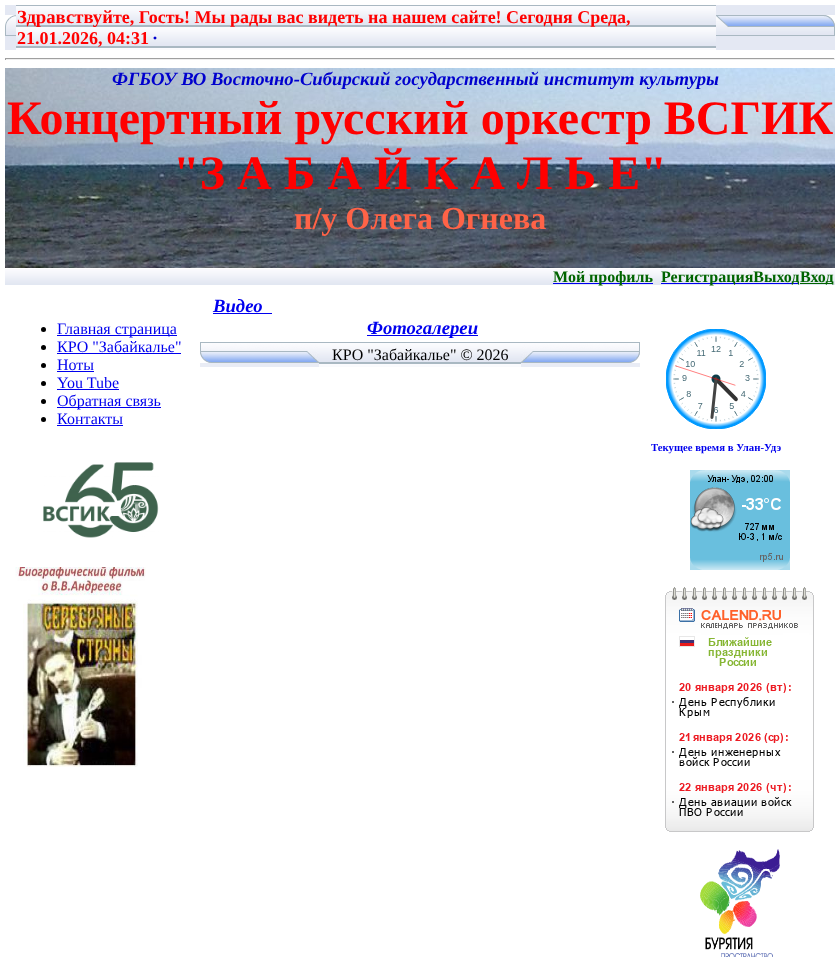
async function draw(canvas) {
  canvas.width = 840;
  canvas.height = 957;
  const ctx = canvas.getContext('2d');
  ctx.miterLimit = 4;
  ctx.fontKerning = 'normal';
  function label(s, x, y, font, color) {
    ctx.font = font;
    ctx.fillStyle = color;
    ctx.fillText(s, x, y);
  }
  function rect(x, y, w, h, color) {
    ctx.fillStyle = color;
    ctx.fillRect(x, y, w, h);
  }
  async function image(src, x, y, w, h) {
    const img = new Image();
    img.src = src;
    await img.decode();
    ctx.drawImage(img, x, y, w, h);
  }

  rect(0, 0, 840, 957, '#fff');
  rect(5, 5, 11, 45, '#e4e8f3');
  await image('assets/img1.png', 5, 15, 11, 21);
  await image('assets/img2.png', 16, 5, 700, 45);
  label('Здравствуй', 17, 23, 'bold 18.7px Liberation Serif', '#f00');
  label('те, Гость! Мы рады вас видеть на нашем сайте! Сегодня Среда,', 113, 23, 'bold 18px Liberation Serif', '#f00');
  label('21.01.2026, 04:31', 17, 44, 'bold 18px Liberation Serif', '#f00');
  label('·', 152, 44, 'bold 18px Liberation Serif', '#0000cd');
  rect(716, 5, 119, 45, '#e4e8f3');
  await image('assets/img3.png', 716, 15, 119, 21);
  rect(5, 58, 830, 1, '#9f9f9f');
  rect(834, 58, 1, 2, '#eee');
  rect(5, 59, 830, 1, '#eee');
  rect(5, 58, 1, 2, '#9f9f9f');
  await image('assets/img4.png', 5, 68, 830, 200);
  label('ФГБОУ ВО Восточно-Сибирский государственный институт культуры', 112, 85, 'italic bold 18.7px Liberation Serif', '#0000cd');
  label('Концертный русский оркестр ВСГИК', 7, 134, 'bold 48px Liberation Serif', '#f00');
  label('"З А Б А Й К А Л Ь Е"', 173, 189, 'bold 48px Liberation Serif', '#f00');
  label('п/у Олега Огнева', 294, 229, 'bold 32px Liberation Serif', '#ff6347');
  await image('assets/img5.png', 5, 269, 541, 16);
  await image('assets/img6.png', 546, 269, 115, 16);
  rect(553, 283, 100, 1, '#00e');
  label('Мой профиль', 553, 282, 'bold 16px Liberation Serif', '#006400');
  await image('assets/img7.png', 753, 269, 46, 16);
  await image('assets/img8.png', 834, 269, 1, 16);
  await image('assets/img9.png', 661, 269, 92, 16);
  rect(661, 283, 138, 1, '#00e');
  label('РегистрацияВыход', 661, 282, 'bold 16px Liberation Serif', '#006400');
  await image('assets/img10.png', 799, 269, 35, 16);
  rect(800, 283, 33, 1, '#006400');
  label('Вход', 800, 282, 'bold 16px Liberation Serif', '#006400');
  ctx.fillStyle = '#000';
  ctx.beginPath();
  ctx.arc(43.5, 329.5, 2.5, 0, 2 * Math.PI);
  ctx.fill();
  rect(57, 335, 120, 1, '#00e');
  label('Главная страница', 57, 334, '16px Liberation Serif', '#00e');
  ctx.fillStyle = '#000';
  ctx.beginPath();
  ctx.arc(43.5, 347.5, 2.5, 0, 2 * Math.PI);
  ctx.fill();
  label('КРО "Забайкалье"', 57, 352, '16px Liberation Serif', '#00e');
  rect(57, 353, 124, 1, '#00e');
  ctx.fillStyle = '#000';
  ctx.beginPath();
  ctx.arc(43.5, 365.5, 2.5, 0, 2 * Math.PI);
  ctx.fill();
  label('Ноты', 57, 370, '16px Liberation Serif', '#00e');
  rect(57, 371, 37, 1, '#00e');
  ctx.fillStyle = '#000';
  ctx.beginPath();
  ctx.arc(43.5, 383.5, 2.5, 0, 2 * Math.PI);
  ctx.fill();
  label('You Tube', 57, 388, '16px Liberation Serif', '#00e');
  rect(57, 389, 62, 1, '#00e');
  ctx.fillStyle = '#000';
  ctx.beginPath();
  ctx.arc(43.5, 401.5, 2.5, 0, 2 * Math.PI);
  ctx.fill();
  rect(57, 407, 104, 1, '#00e');
  label('Обратная связь', 57, 406, '16px Liberation Serif', '#00e');
  ctx.fillStyle = '#000';
  ctx.beginPath();
  ctx.arc(43.5, 419.5, 2.5, 0, 2 * Math.PI);
  ctx.fill();
  label('Контакты', 57, 424, '16px Liberation Serif', '#00e');
  rect(57, 425, 66, 1, '#00e');
  await image('assets/img11.png', 43, 462, 116, 76);
  await image('assets/img12.png', 15, 567, 131, 200);
  label('Видео', 213, 312, 'italic bold 18.7px Liberation Serif', '#00e');
  rect(213, 313, 59, 1, '#00e');
  rect(367, 335, 111, 1, '#00e');
  label('Фотогалереи', 367, 334, 'italic bold 18.7px Liberation Serif', '#00e');
  rect(200, 363, 119, 4, '#e9ecf5');
  await image('assets/img13.png', 200, 342, 119, 21);
  await image('assets/img14.png', 319, 342, 202, 25);
  label('КРО "Забайкалье" © 2026', 332, 360, '16px Liberation Serif', '#000');
  rect(521, 363, 119, 4, '#e9ecf5');
  await image('assets/img15.png', 521, 342, 119, 21);
  await image('assets/img16.png', 666, 329, 100, 100);
  label('Текущее время в Улан-Удэ', 651, 451, 'bold 10.75px Liberation Serif', '#00e');
  await image('assets/img17.png', 690, 470, 100, 100);
  await image('assets/img18.png', 665, 587, 149, 245);
  await image('assets/img19.png', 700, 849, 80, 108);
}

draw(document.querySelector('canvas'));
